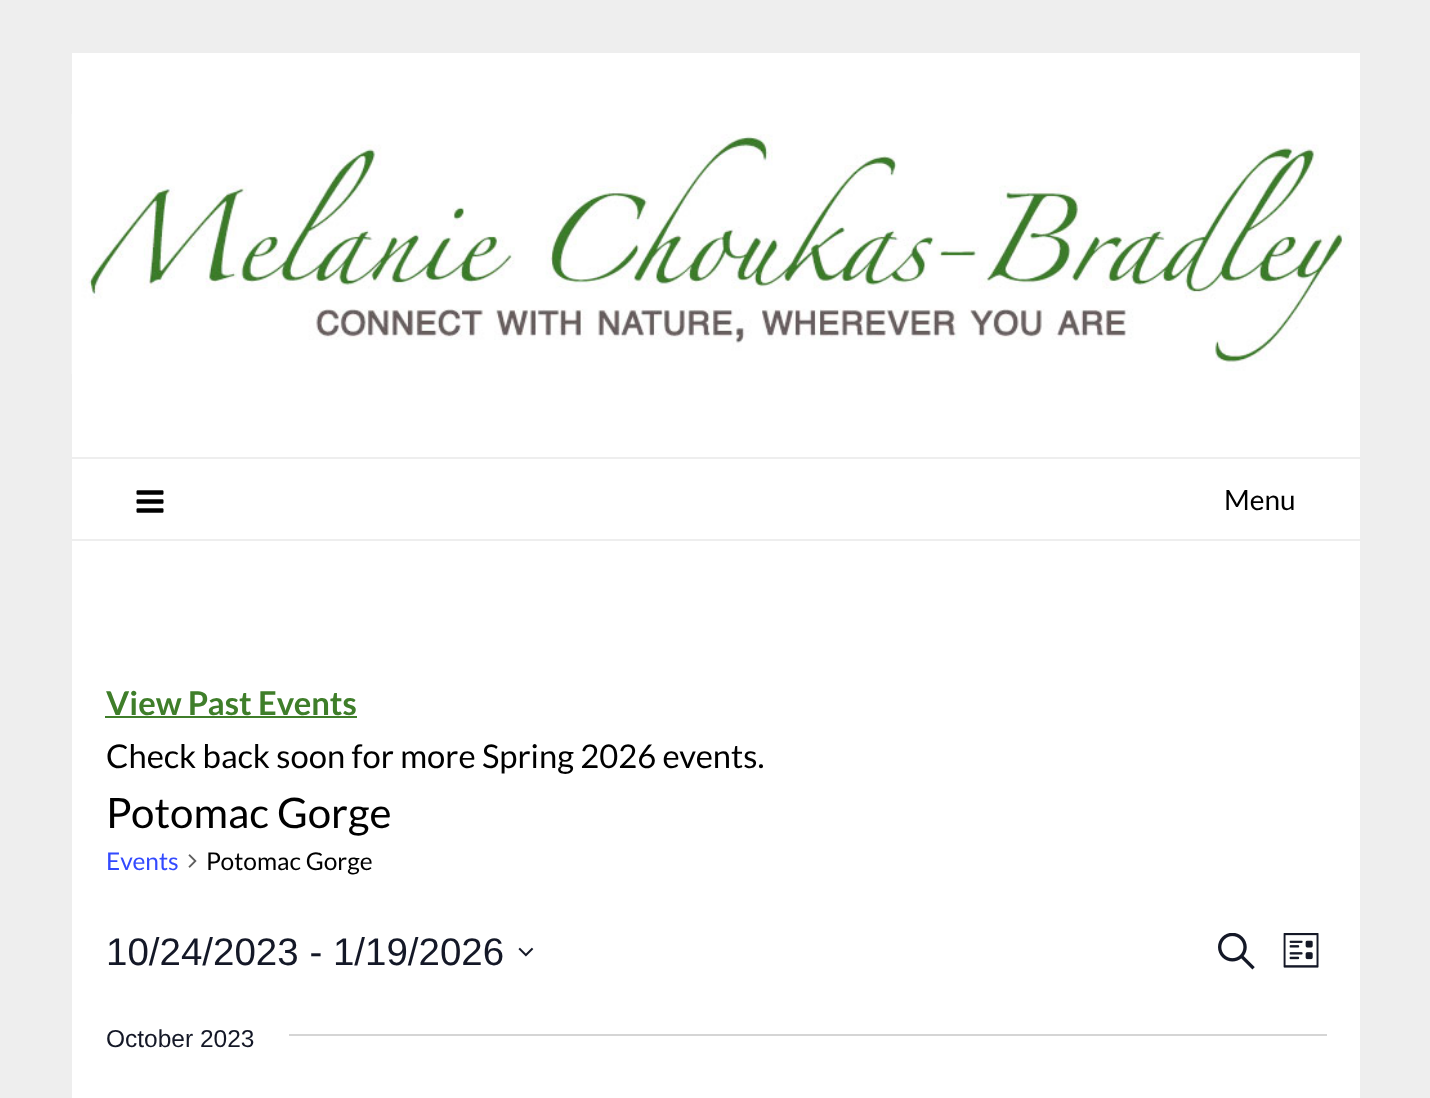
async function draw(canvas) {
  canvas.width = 1430;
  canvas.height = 1098;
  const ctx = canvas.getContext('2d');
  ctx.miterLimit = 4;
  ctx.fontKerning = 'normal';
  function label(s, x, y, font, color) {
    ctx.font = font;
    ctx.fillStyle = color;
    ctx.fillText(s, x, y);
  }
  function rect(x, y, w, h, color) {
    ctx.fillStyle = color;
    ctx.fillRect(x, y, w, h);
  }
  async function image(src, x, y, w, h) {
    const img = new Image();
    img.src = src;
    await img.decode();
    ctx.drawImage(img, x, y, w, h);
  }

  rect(0, 0, 1430, 1098, '#eee');
  rect(72, 53, 1288, 404, '#fff');
  await image('assets/img1.png', 71, 114, 1279, 260);
  rect(72, 459, 1288, 80, '#fff');
  await image('assets/img2.png', 136, 490, 28, 23);
  label('Menu', 1224, 510, '28px Lato', '#000');
  rect(72, 541, 1288, 557, '#fff');
  label('View Past Events', 106, 715, 'bold 32.75px Lato', '#3f7e2a');
  rect(105, 716, 252, 2, '#3f7e2a');
  label('Check back soon for more Spring 2026 events.', 106, 768, '32.75px Lato', '#000');
  label('Potomac Gorge', 106, 828, '42px Lato', '#000');
  label('Events', 106, 870, '24.5px Lato', '#334aff');
  await image('assets/img3.png', 188, 854, 9, 14);
  label('Potomac Gorge', 206, 870, '24.5px Lato', '#000');
  label('10/24/2023 - 1/19/2026', 106, 965, '38.5px Liberation Sans', '#141827');
  await image('assets/img4.png', 518, 947, 16, 10);
  await image('assets/img5.png', 1218, 933, 37, 37);
  await image('assets/img6.png', 1283, 933, 36, 35);
  label('October 2023', 106, 1047, '24.5px Liberation Sans', '#141827');
  rect(289, 1034, 1038, 2, '#d5d5d5');
}

draw(document.querySelector('canvas'));
